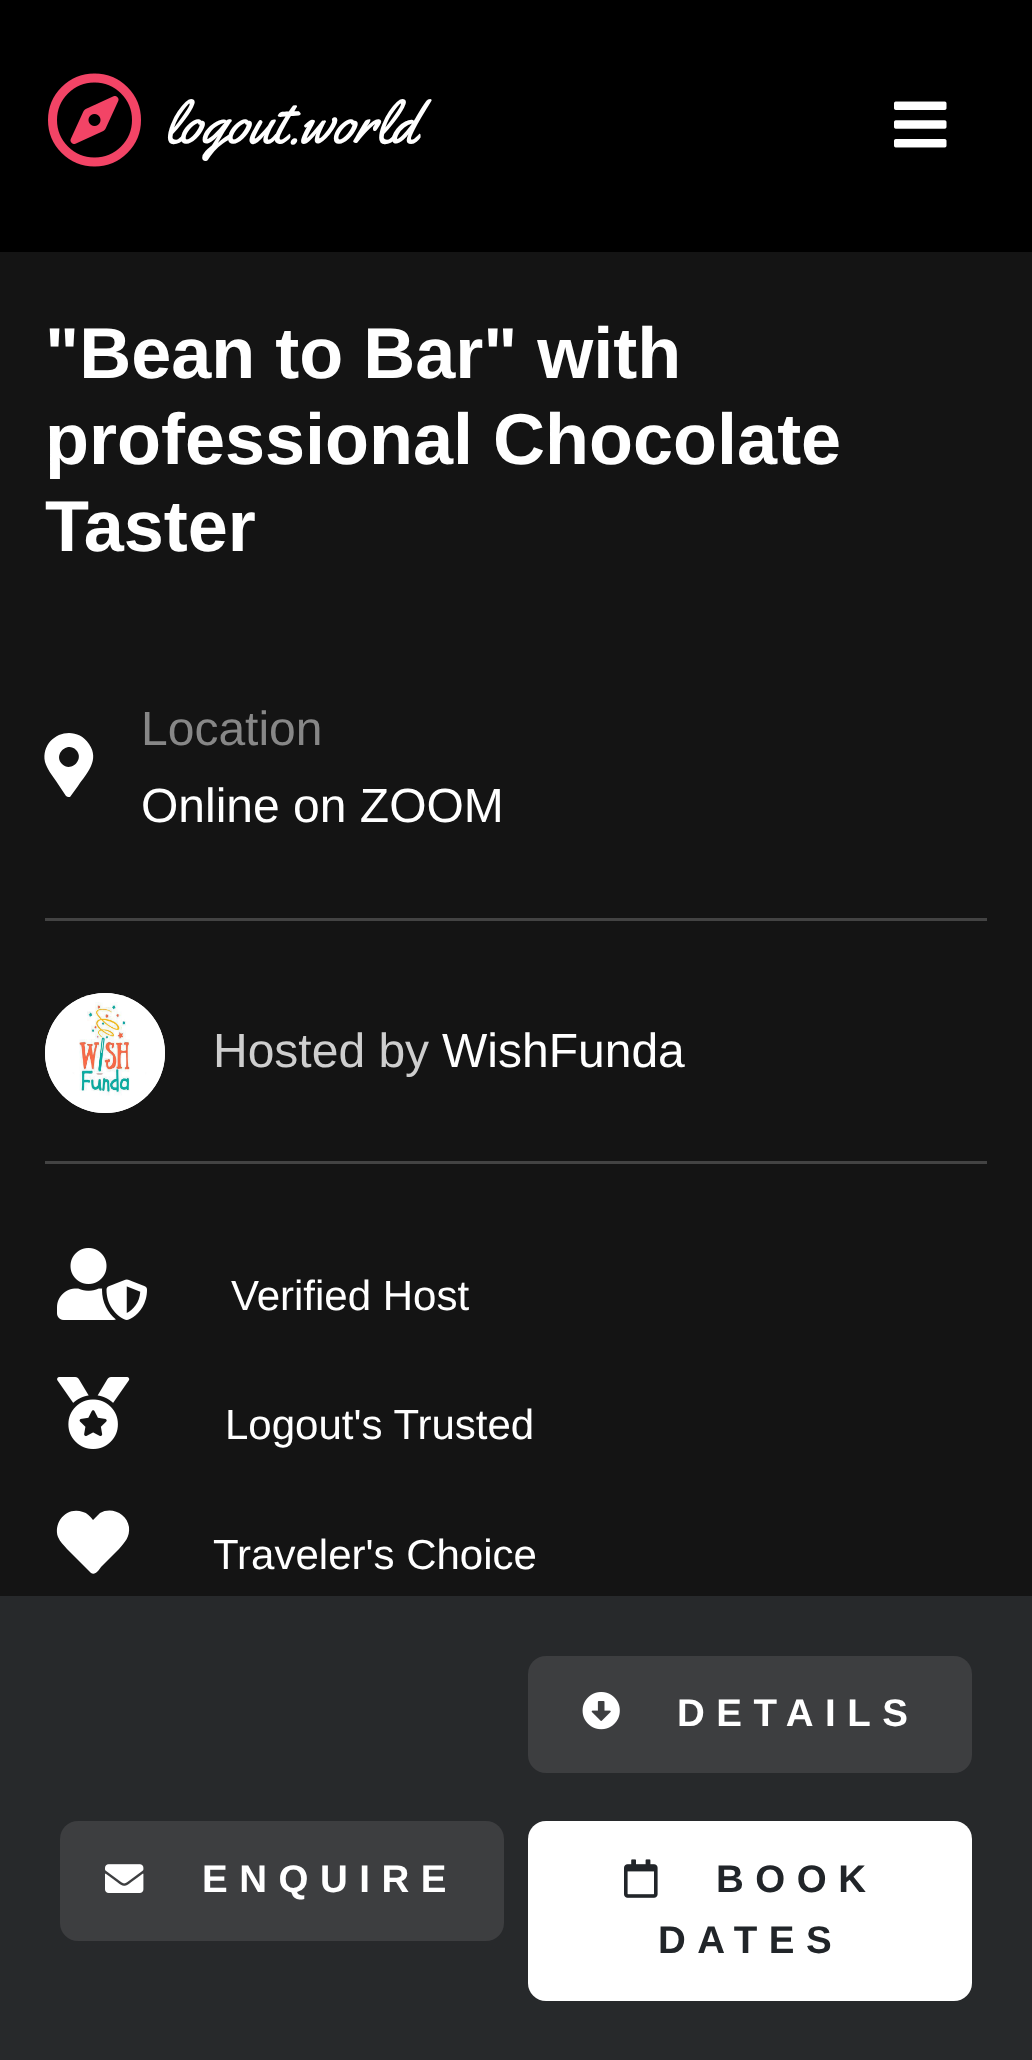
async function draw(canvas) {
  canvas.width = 1032;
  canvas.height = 2060;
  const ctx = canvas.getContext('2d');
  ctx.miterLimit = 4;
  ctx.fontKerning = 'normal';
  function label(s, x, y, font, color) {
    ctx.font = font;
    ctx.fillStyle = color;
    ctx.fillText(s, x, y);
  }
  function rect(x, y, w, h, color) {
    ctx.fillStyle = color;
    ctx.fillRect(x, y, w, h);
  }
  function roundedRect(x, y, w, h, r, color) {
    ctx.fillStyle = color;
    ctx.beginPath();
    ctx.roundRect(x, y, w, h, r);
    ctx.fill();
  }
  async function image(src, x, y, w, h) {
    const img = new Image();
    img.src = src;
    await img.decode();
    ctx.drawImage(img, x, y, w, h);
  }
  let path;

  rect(0, 0, 1032, 2060, '#141414');
  rect(0, 0, 1032, 252, '#000');
  await image('assets/img1.png', 48, 73, 93, 94);
  label('logout.world', 165, 143, '60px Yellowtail', '#fff');
  await image('assets/img2.png', 894, 101, 53, 47);
  label('"Bean to Bar" with', 45, 378, 'bold 72px Liberation Sans', '#fff');
  label('professional Chocolate', 45, 464, 'bold 72px Liberation Sans', '#fff');
  label('Taster', 45, 551, 'bold 72px Liberation Sans', '#fff');
  path = new Path2D('M66 796L56 781C52 775 47 769 45 762C40 736 74 722 89 744C100 760 87 773 78 786L70 797C69 797 67 797 66 796ZM62 764C71 773 85 759 76 750C67 741 53 755 62 764Z');
  ctx.fill(path);
  label('Location', 141, 745, '48px Liberation Sans', '#878787');
  label('Online on ZOOM', 141, 822, '48px Liberation Sans', '#fff');
  rect(45, 918, 942, 3, '#434343');
  ctx.fillStyle = '#fff';
  ctx.beginPath();
  ctx.arc(105, 1053, 60, 0, 2 * Math.PI);
  ctx.fill();
  await image('assets/img3.png', 45, 993, 120, 120);
  label('Hosted by', 213, 1067, '48px Liberation Sans', '#cecece');
  label('WishFunda', 442, 1067, '48px Liberation Sans', '#fff');
  rect(45, 1161, 942, 3, '#434343');
  await image('assets/img4.png', 57, 1248, 90, 72);
  label('Verified Host', 231, 1310, '42px Liberation Sans', '#fff');
  await image('assets/img5.png', 57, 1377, 73, 72);
  label('Logout\'s Trusted', 225, 1439, '42px Liberation Sans', '#fff');
  path = new Path2D('M122 1515C126 1518 128 1522 129 1527C130 1537 125 1542 119 1549L101 1567C99 1570 95 1576 91 1573L67 1549C64 1545 60 1542 58 1537C53 1522 67 1506 83 1512C87 1513 90 1516 93 1520L100 1513C107 1509 116 1510 122 1515Z');
  ctx.fill(path);
  label('Traveler\'s Choice', 213, 1569, '42px Liberation Sans', '#fff');
  rect(0, 1596, 1032, 464, '#27292b');
  roundedRect(528, 1656, 444, 117, 18, '#3d3e40');
  await image('assets/img6.png', 582, 1692, 38, 38);
  ctx.letterSpacing = '11.5px';
  label('DETAILS', 677, 1726, 'bold 38.5px Liberation Sans', '#fff');
  roundedRect(60, 1821, 444, 120, 18, '#3d3e40');
  await image('assets/img7.png', 105, 1864, 39, 29);
  label('ENQUIRE', 202, 1892, 'bold 38.5px Liberation Sans', '#fff');
  roundedRect(528, 1821, 444, 180, 18, '#fff');
  await image('assets/img8.png', 624, 1859, 34, 39);
  label('BOOK', 716, 1892, 'bold 38.5px Liberation Sans', '#212529');
  label('DATES', 658, 1953, 'bold 38.5px Liberation Sans', '#212529');
}

draw(document.querySelector('canvas'));
